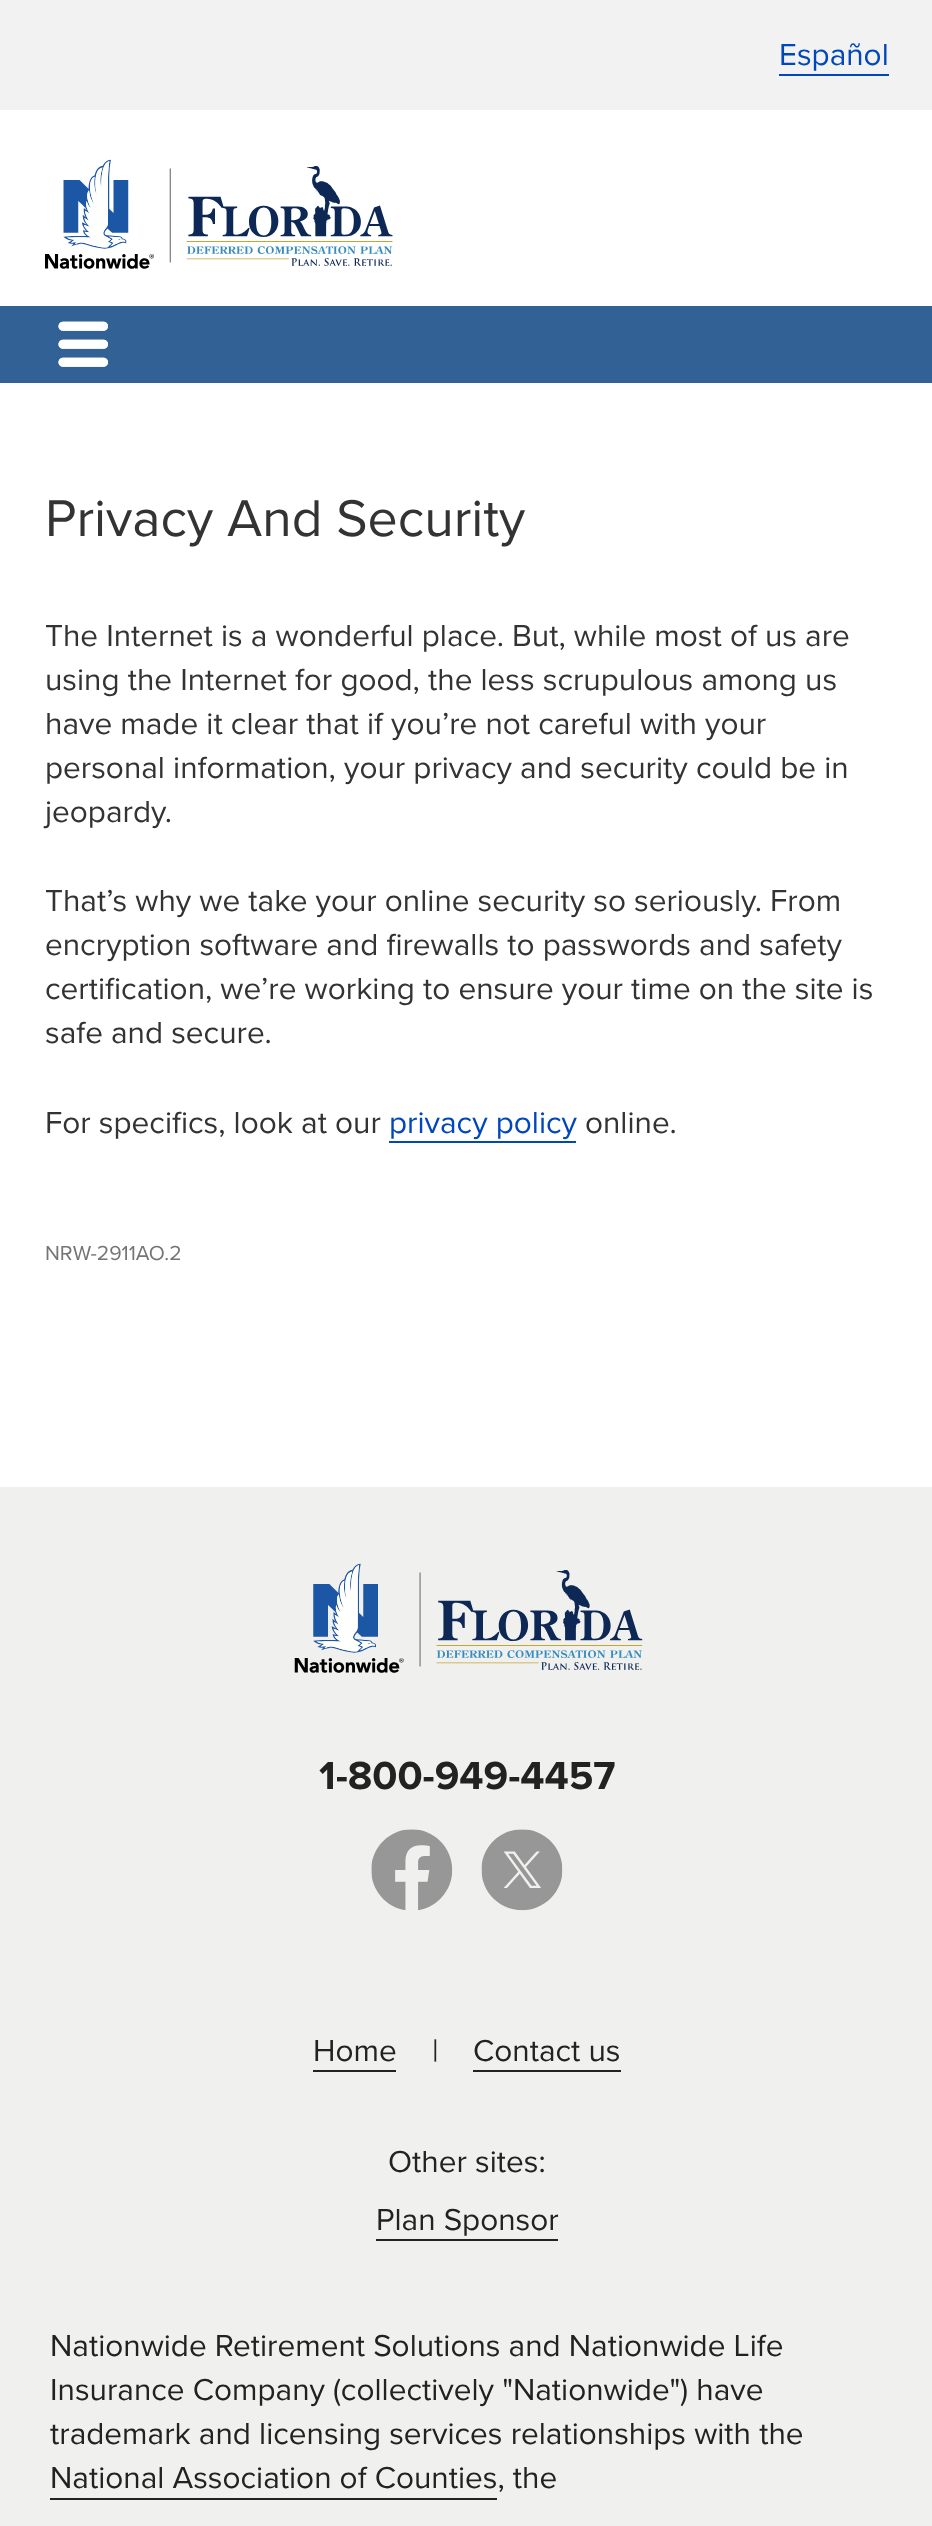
async function draw(canvas) {
  canvas.width = 932;
  canvas.height = 2526;
  const ctx = canvas.getContext('2d');
  ctx.miterLimit = 4;
  ctx.fontKerning = 'normal';
  function label(s, x, y, font, color) {
    ctx.font = font;
    ctx.fillStyle = color;
    ctx.fillText(s, x, y);
  }
  function rect(x, y, w, h, color) {
    ctx.fillStyle = color;
    ctx.fillRect(x, y, w, h);
  }
  async function image(src, x, y, w, h) {
    const img = new Image();
    img.src = src;
    await img.decode();
    ctx.drawImage(img, x, y, w, h);
  }

  rect(0, 0, 932, 2526, '#fff');
  rect(0, 0, 932, 110, '#f2f2f2');
  label('Español', 779, 65, '31.5px Proxima Nova', '#0047bb');
  rect(779, 74, 110, 2, '#0047bb');
  await image('assets/img1.png', 45, 159, 348, 110);
  rect(0, 306, 932, 77, '#326295');
  await image('assets/img2.png', 58, 321, 50, 46);
  label('Privacy And Security', 45, 536, '53.5px Proxima Nova', '#333');
  label('The Internet is a wonderful place. But, while most of us are', 45, 646, '31.5px Proxima Nova', '#333');
  label('using the Internet for good, the less scrupulous among us', 45, 690, '31.5px Proxima Nova', '#333');
  label('have made it clear that if you’re not careful with your', 45, 734, '31.5px Proxima Nova', '#333');
  label('personal information, your privacy and security could be in', 45, 778, '31.5px Proxima Nova', '#333');
  label('jeopardy.', 45, 822, '31.5px Proxima Nova', '#333');
  label('That’s why we take your online security so seriously. From', 45, 911, '31.5px Proxima Nova', '#333');
  label('encryption software and firewalls to passwords and safety', 45, 955, '31.5px Proxima Nova', '#333');
  label('certification, we’re working to ensure your time on the site is', 45, 999, '31.5px Proxima Nova', '#333');
  label('safe and secure.', 45, 1043, '31.5px Proxima Nova', '#333');
  label('For specifics, look at our', 45, 1133, '31.5px Proxima Nova', '#333');
  label('privacy policy', 389, 1133, '31.5px Proxima Nova', '#0047bb');
  rect(389, 1141, 187, 2, '#0047bb');
  label('online.', 585, 1133, '31.5px Proxima Nova', '#333');
  label('NRW-2911AO.2', 45, 1260, '21px Proxima Nova', '#757575');
  rect(0, 1487, 932, 1039, '#f0f0ee');
  await image('assets/img3.png', 294, 1563, 349, 110);
  label('1-800-949-4457', 319, 1789, 'bold 40.5px Proxima Nova', '#222');
  await image('assets/img4.png', 371, 1829, 82, 81);
  await image('assets/img5.png', 481, 1829, 82, 82);
  label('Home', 313, 2061, '31.5px Proxima Nova', '#222');
  rect(313, 2070, 83, 2, '#222');
  label('|', 432, 2061, '31.5px Proxima Nova', '#222');
  label('Contact us', 473, 2061, '31.5px Proxima Nova', '#222');
  rect(473, 2070, 148, 2, '#222');
  label('Other sites:', 388, 2172, '31.5px Proxima Nova', '#222');
  label('Plan Sponsor', 376, 2230, '31.5px Proxima Nova', '#222');
  rect(376, 2239, 182, 2, '#222');
  label('Nationwide Retirement Solutions and Nationwide Life', 50, 2356, '31.5px Proxima Nova', '#222');
  label('Insurance Company (collectively "Nationwide") have', 50, 2400, '31.5px Proxima Nova', '#222');
  label('trademark and licensing services relationships with the', 50, 2444, '31.5px Proxima Nova', '#222');
  label('National Association of Counties, the', 50, 2488, '31.5px Proxima Nova', '#222');
  rect(50, 2498, 447, 2, '#222');
}

draw(document.querySelector('canvas'));
